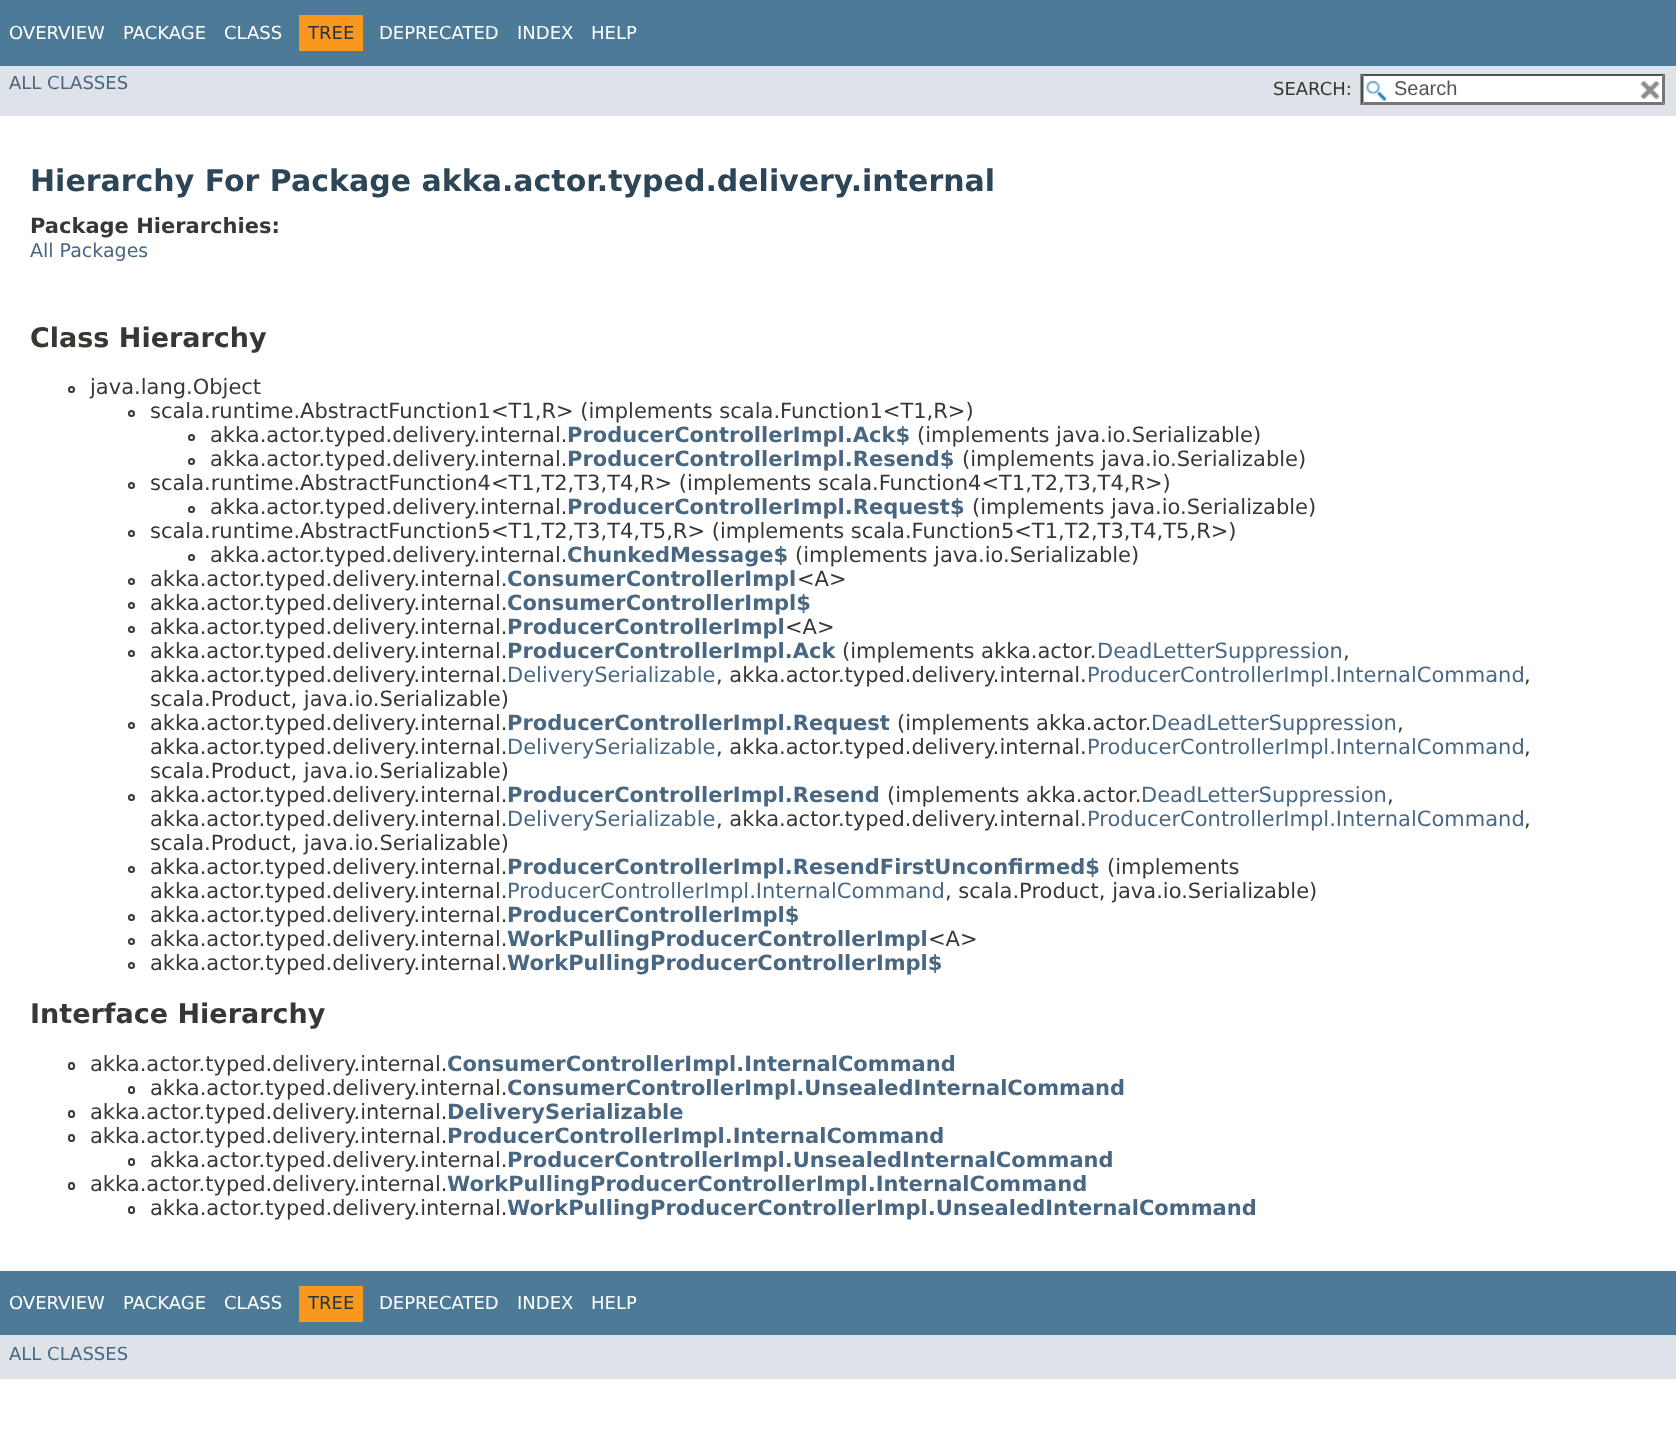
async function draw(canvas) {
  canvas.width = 1676;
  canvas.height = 1451;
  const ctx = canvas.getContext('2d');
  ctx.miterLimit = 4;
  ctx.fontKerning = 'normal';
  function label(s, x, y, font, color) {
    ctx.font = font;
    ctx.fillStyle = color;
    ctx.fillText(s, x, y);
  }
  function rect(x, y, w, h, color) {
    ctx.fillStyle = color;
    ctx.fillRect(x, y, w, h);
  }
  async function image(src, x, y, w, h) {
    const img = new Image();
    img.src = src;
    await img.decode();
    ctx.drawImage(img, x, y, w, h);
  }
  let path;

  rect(0, 0, 1676, 1451, '#fff');
  rect(0, 0, 1676, 66, '#4d7a97');
  label('OVERVIEW', 9, 39, '18px DejaVu Sans', '#fff');
  label('PACKAGE', 123, 39, '18px DejaVu Sans', '#fff');
  label('CLASS', 224, 39, '18px DejaVu Sans', '#fff');
  rect(299, 15, 64, 36, '#f8981d');
  label('TREE', 308, 39, '18px DejaVu Sans', '#253441');
  label('DEPRECATED', 379, 39, '18px DejaVu Sans', '#fff');
  label('INDEX', 517, 39, '18px DejaVu Sans', '#fff');
  label('HELP', 591, 39, '18px DejaVu Sans', '#fff');
  rect(0, 66, 1676, 50, '#dee3e9');
  label('ALL CLASSES', 9, 89, '18px DejaVu Sans', '#4a6782');
  label('SEARCH:', 1273, 95, '18px DejaVu Sans', '#353833');
  rect(1361, 74, 304, 31, '#fff');
  await image('assets/img1.png', 1366, 81, 20, 20);
  ctx.fillStyle = '#4f4f4f';
  path = new Path2D('M1360 74H1665L1662 76H1364Z');
  ctx.fill(path);
  ctx.fillStyle = '#767676';
  path = new Path2D('M1665 73.5V105L1662 102V76.5Z');
  ctx.fill(path);
  path = new Path2D('M1665 105H1360L1364 102H1662Z');
  ctx.fill(path);
  ctx.fillStyle = '#4f4f4f';
  path = new Path2D('M1360.5 105V73.5L1363.5 76.5V102Z');
  ctx.fill(path);
  label('Search', 1394, 95, '20px Liberation Sans', '#545454');
  await image('assets/img2.png', 1640, 81, 20, 19);
  label('Hierarchy For Package akka.actor.typed.delivery.internal', 30, 191, 'bold 30px DejaVu Sans', '#2c4557');
  label('Package Hierarchies:', 30, 233, 'bold 21px DejaVu Sans', '#353833');
  label('All Packages', 30, 257, '19px DejaVu Sans', '#4a6782');
  label('Class Hierarchy', 30, 347, 'bold 27px DejaVu Sans', '#353833');
  ctx.beginPath();
  ctx.arc(71.5, 389.5, 2.5, 0, 2 * Math.PI);
  ctx.strokeStyle = '#353833';
  ctx.lineWidth = 2;
  ctx.stroke();
  label('java.lang.Object', 90, 394, '21px DejaVu Sans', '#353833');
  ctx.beginPath();
  ctx.arc(131.5, 413.5, 2.5, 0, 2 * Math.PI);
  ctx.stroke();
  label('scala.runtime.AbstractFunction1<T1,R> (implements scala.Function1<T1,R>)', 150, 418, '21px DejaVu Sans', '#353833');
  ctx.beginPath();
  ctx.arc(191.5, 437.5, 2.5, 0, 2 * Math.PI);
  ctx.stroke();
  label('akka.actor.typed.delivery.internal.', 210, 442, '21px DejaVu Sans', '#353833');
  label('ProducerControllerImpl.Ack$', 567, 442, 'bold 21px DejaVu Sans', '#4a6782');
  label('(implements java.io.Serializable)', 917, 442, '21px DejaVu Sans', '#353833');
  ctx.beginPath();
  ctx.arc(191.5, 461.5, 2.5, 0, 2 * Math.PI);
  ctx.stroke();
  label('akka.actor.typed.delivery.internal.', 210, 466, '21px DejaVu Sans', '#353833');
  label('ProducerControllerImpl.Resend$', 567, 466, 'bold 21px DejaVu Sans', '#4a6782');
  label('(implements java.io.Serializable)', 962, 466, '21px DejaVu Sans', '#353833');
  ctx.beginPath();
  ctx.arc(131.5, 485.5, 2.5, 0, 2 * Math.PI);
  ctx.stroke();
  label('scala.runtime.AbstractFunction4<T1,T2,T3,T4,R> (implements scala.Function4<T1,T2,T3,T4,R>)', 150, 490, '21px DejaVu Sans', '#353833');
  ctx.beginPath();
  ctx.arc(191.5, 509.5, 2.5, 0, 2 * Math.PI);
  ctx.stroke();
  label('akka.actor.typed.delivery.internal.', 210, 514, '21px DejaVu Sans', '#353833');
  label('ProducerControllerImpl.Request$', 567, 514, 'bold 21px DejaVu Sans', '#4a6782');
  label('(implements java.io.Serializable)', 972, 514, '21px DejaVu Sans', '#353833');
  ctx.beginPath();
  ctx.arc(131.5, 533.5, 2.5, 0, 2 * Math.PI);
  ctx.stroke();
  label('scala.runtime.AbstractFunction5<T1,T2,T3,T4,T5,R> (implements scala.Function5<T1,T2,T3,T4,T5,R>)', 150, 538, '21px DejaVu Sans', '#353833');
  ctx.beginPath();
  ctx.arc(191.5, 557.5, 2.5, 0, 2 * Math.PI);
  ctx.stroke();
  label('akka.actor.typed.delivery.internal.', 210, 562, '21px DejaVu Sans', '#353833');
  label('ChunkedMessage$', 567, 562, 'bold 21px DejaVu Sans', '#4a6782');
  label('(implements java.io.Serializable)', 795, 562, '21px DejaVu Sans', '#353833');
  ctx.beginPath();
  ctx.arc(131.5, 581.5, 2.5, 0, 2 * Math.PI);
  ctx.stroke();
  label('akka.actor.typed.delivery.internal.', 150, 586, '21px DejaVu Sans', '#353833');
  label('ConsumerControllerImpl', 507, 586, 'bold 21px DejaVu Sans', '#4a6782');
  label('<A>', 797, 586, '21px DejaVu Sans', '#353833');
  ctx.beginPath();
  ctx.arc(131.5, 605.5, 2.5, 0, 2 * Math.PI);
  ctx.stroke();
  label('akka.actor.typed.delivery.internal.', 150, 610, '21px DejaVu Sans', '#353833');
  label('ConsumerControllerImpl$', 507, 610, 'bold 21px DejaVu Sans', '#4a6782');
  ctx.beginPath();
  ctx.arc(131.5, 629.5, 2.5, 0, 2 * Math.PI);
  ctx.stroke();
  label('akka.actor.typed.delivery.internal.', 150, 634, '21px DejaVu Sans', '#353833');
  label('ProducerControllerImpl', 507, 634, 'bold 21px DejaVu Sans', '#4a6782');
  label('<A>', 785, 634, '21px DejaVu Sans', '#353833');
  ctx.beginPath();
  ctx.arc(131.5, 653.5, 2.5, 0, 2 * Math.PI);
  ctx.stroke();
  label('akka.actor.typed.delivery.internal.', 150, 658, '21px DejaVu Sans', '#353833');
  label('ProducerControllerImpl.Ack', 507, 658, 'bold 21px DejaVu Sans', '#4a6782');
  label('(implements akka.actor.', 842, 658, '21px DejaVu Sans', '#353833');
  label('DeadLetterSuppression', 1097, 658, '21px DejaVu Sans', '#4a6782');
  label(',', 1343, 658, '21px DejaVu Sans', '#353833');
  label('akka.actor.typed.delivery.internal.', 150, 682, '21px DejaVu Sans', '#353833');
  label('DeliverySerializable', 507, 682, '21px DejaVu Sans', '#4a6782');
  label(', akka.actor.typed.delivery.internal.', 716, 682, '21px DejaVu Sans', '#353833');
  label('ProducerControllerImpl.InternalCommand', 1087, 682, '21px DejaVu Sans', '#4a6782');
  label(',', 1524, 682, '21px DejaVu Sans', '#353833');
  label('scala.Product, java.io.Serializable)', 150, 706, '21px DejaVu Sans', '#353833');
  ctx.beginPath();
  ctx.arc(131.5, 725.5, 2.5, 0, 2 * Math.PI);
  ctx.stroke();
  label('akka.actor.typed.delivery.internal.', 150, 730, '21px DejaVu Sans', '#353833');
  label('ProducerControllerImpl.Request', 507, 730, 'bold 21px DejaVu Sans', '#4a6782');
  label('(implements akka.actor.', 897, 730, '21px DejaVu Sans', '#353833');
  label('DeadLetterSuppression', 1151, 730, '21px DejaVu Sans', '#4a6782');
  label(',', 1397, 730, '21px DejaVu Sans', '#353833');
  label('akka.actor.typed.delivery.internal.', 150, 754, '21px DejaVu Sans', '#353833');
  label('DeliverySerializable', 507, 754, '21px DejaVu Sans', '#4a6782');
  label(', akka.actor.typed.delivery.internal.', 716, 754, '21px DejaVu Sans', '#353833');
  label('ProducerControllerImpl.InternalCommand', 1087, 754, '21px DejaVu Sans', '#4a6782');
  label(',', 1524, 754, '21px DejaVu Sans', '#353833');
  label('scala.Product, java.io.Serializable)', 150, 778, '21px DejaVu Sans', '#353833');
  ctx.beginPath();
  ctx.arc(131.5, 797.5, 2.5, 0, 2 * Math.PI);
  ctx.stroke();
  label('akka.actor.typed.delivery.internal.', 150, 802, '21px DejaVu Sans', '#353833');
  label('ProducerControllerImpl.Resend', 507, 802, 'bold 21px DejaVu Sans', '#4a6782');
  label('(implements akka.actor.', 887, 802, '21px DejaVu Sans', '#353833');
  label('DeadLetterSuppression', 1141, 802, '21px DejaVu Sans', '#4a6782');
  label(',', 1387, 802, '21px DejaVu Sans', '#353833');
  label('akka.actor.typed.delivery.internal.', 150, 826, '21px DejaVu Sans', '#353833');
  label('DeliverySerializable', 507, 826, '21px DejaVu Sans', '#4a6782');
  label(', akka.actor.typed.delivery.internal.', 716, 826, '21px DejaVu Sans', '#353833');
  label('ProducerControllerImpl.InternalCommand', 1087, 826, '21px DejaVu Sans', '#4a6782');
  label(',', 1524, 826, '21px DejaVu Sans', '#353833');
  label('scala.Product, java.io.Serializable)', 150, 850, '21px DejaVu Sans', '#353833');
  ctx.beginPath();
  ctx.arc(131.5, 869.5, 2.5, 0, 2 * Math.PI);
  ctx.stroke();
  label('akka.actor.typed.delivery.internal.', 150, 874, '21px DejaVu Sans', '#353833');
  label('ProducerControllerImpl.ResendFirstUnconfirmed$', 507, 874, 'bold 21px DejaVu Sans', '#4a6782');
  label('(implements', 1107, 874, '21px DejaVu Sans', '#353833');
  label('akka.actor.typed.delivery.internal.', 150, 898, '21px DejaVu Sans', '#353833');
  label('ProducerControllerImpl.InternalCommand', 507, 898, '21px DejaVu Sans', '#4a6782');
  label(', scala.Product, java.io.Serializable)', 945, 898, '21px DejaVu Sans', '#353833');
  ctx.beginPath();
  ctx.arc(131.5, 917.5, 2.5, 0, 2 * Math.PI);
  ctx.stroke();
  label('akka.actor.typed.delivery.internal.', 150, 922, '21px DejaVu Sans', '#353833');
  label('ProducerControllerImpl$', 507, 922, 'bold 21px DejaVu Sans', '#4a6782');
  ctx.beginPath();
  ctx.arc(131.5, 941.5, 2.5, 0, 2 * Math.PI);
  ctx.stroke();
  label('akka.actor.typed.delivery.internal.', 150, 946, '21px DejaVu Sans', '#353833');
  label('WorkPullingProducerControllerImpl', 507, 946, 'bold 21px DejaVu Sans', '#4a6782');
  label('<A>', 928, 946, '21px DejaVu Sans', '#353833');
  ctx.beginPath();
  ctx.arc(131.5, 965.5, 2.5, 0, 2 * Math.PI);
  ctx.stroke();
  label('akka.actor.typed.delivery.internal.', 150, 970, '21px DejaVu Sans', '#353833');
  label('WorkPullingProducerControllerImpl$', 507, 970, 'bold 21px DejaVu Sans', '#4a6782');
  label('Interface Hierarchy', 30, 1023, 'bold 27px DejaVu Sans', '#353833');
  ctx.beginPath();
  ctx.roundRect(69, 1063, 5, 6, 2.5);
  ctx.stroke();
  label('akka.actor.typed.delivery.internal.', 90, 1071, '21px DejaVu Sans', '#353833');
  label('ConsumerControllerImpl.InternalCommand', 447, 1071, 'bold 21px DejaVu Sans', '#4a6782');
  ctx.beginPath();
  ctx.roundRect(129, 1087, 5, 6, 2.5);
  ctx.stroke();
  label('akka.actor.typed.delivery.internal.', 150, 1095, '21px DejaVu Sans', '#353833');
  label('ConsumerControllerImpl.UnsealedInternalCommand', 507, 1095, 'bold 21px DejaVu Sans', '#4a6782');
  ctx.beginPath();
  ctx.roundRect(69, 1111, 5, 6, 2.5);
  ctx.stroke();
  label('akka.actor.typed.delivery.internal.', 90, 1119, '21px DejaVu Sans', '#353833');
  label('DeliverySerializable', 447, 1119, 'bold 21px DejaVu Sans', '#4a6782');
  ctx.beginPath();
  ctx.roundRect(69, 1135, 5, 6, 2.5);
  ctx.stroke();
  label('akka.actor.typed.delivery.internal.', 90, 1143, '21px DejaVu Sans', '#353833');
  label('ProducerControllerImpl.InternalCommand', 447, 1143, 'bold 21px DejaVu Sans', '#4a6782');
  ctx.beginPath();
  ctx.roundRect(129, 1159, 5, 6, 2.5);
  ctx.stroke();
  label('akka.actor.typed.delivery.internal.', 150, 1167, '21px DejaVu Sans', '#353833');
  label('ProducerControllerImpl.UnsealedInternalCommand', 507, 1167, 'bold 21px DejaVu Sans', '#4a6782');
  ctx.beginPath();
  ctx.roundRect(69, 1183, 5, 6, 2.5);
  ctx.stroke();
  label('akka.actor.typed.delivery.internal.', 90, 1191, '21px DejaVu Sans', '#353833');
  label('WorkPullingProducerControllerImpl.InternalCommand', 447, 1191, 'bold 21px DejaVu Sans', '#4a6782');
  ctx.beginPath();
  ctx.roundRect(129, 1207, 5, 6, 2.5);
  ctx.stroke();
  label('akka.actor.typed.delivery.internal.', 150, 1215, '21px DejaVu Sans', '#353833');
  label('WorkPullingProducerControllerImpl.UnsealedInternalCommand', 507, 1215, 'bold 21px DejaVu Sans', '#4a6782');
  rect(0, 1271, 1676, 64, '#4d7a97');
  label('OVERVIEW', 9, 1309, '18px DejaVu Sans', '#fff');
  label('PACKAGE', 123, 1309, '18px DejaVu Sans', '#fff');
  label('CLASS', 224, 1309, '18px DejaVu Sans', '#fff');
  rect(299, 1286, 64, 36, '#f8981d');
  label('TREE', 308, 1309, '18px DejaVu Sans', '#253441');
  label('DEPRECATED', 379, 1309, '18px DejaVu Sans', '#fff');
  label('INDEX', 517, 1309, '18px DejaVu Sans', '#fff');
  label('HELP', 591, 1309, '18px DejaVu Sans', '#fff');
  rect(0, 1335, 1676, 44, '#dee3e9');
  label('ALL CLASSES', 9, 1360, '18px DejaVu Sans', '#4a6782');
}

draw(document.querySelector('canvas'));
